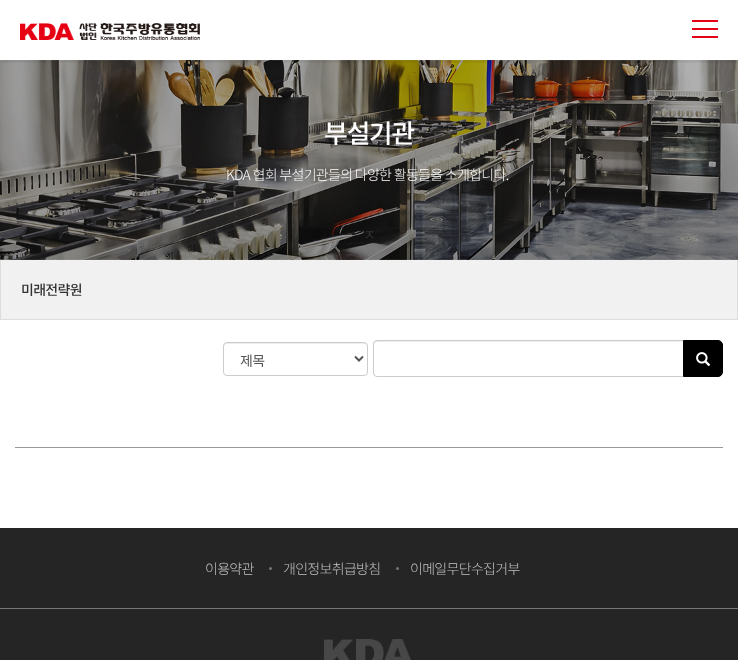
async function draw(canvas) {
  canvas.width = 738;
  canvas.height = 660;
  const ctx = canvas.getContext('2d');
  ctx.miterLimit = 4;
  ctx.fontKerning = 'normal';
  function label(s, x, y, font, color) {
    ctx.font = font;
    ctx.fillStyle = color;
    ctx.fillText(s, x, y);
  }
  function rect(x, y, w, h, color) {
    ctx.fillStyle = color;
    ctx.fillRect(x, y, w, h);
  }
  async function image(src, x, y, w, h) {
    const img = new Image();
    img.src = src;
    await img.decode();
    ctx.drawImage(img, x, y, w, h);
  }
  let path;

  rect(0, 0, 738, 660, '#fff');
  await image('assets/img2.png', 0, 60, 738, 200);
  ctx.save();
  ctx.beginPath();
  ctx.rect(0, 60, 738, 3);
  ctx.clip();
  ctx.fillStyle = '#00000026';
  ctx.filter = 'blur(2px)';
  ctx.beginPath();
  ctx.rect(1, 1, 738, 60);
  ctx.fill();
  ctx.filter = 'none';
  ctx.restore();
  await image('assets/img1.png', 20, 23, 180, 17);
  rect(692, 20, 26, 2, '#e60013');
  rect(692, 28, 26, 2, '#e60013');
  rect(692, 36, 26, 2, '#e60013');
  ctx.letterSpacing = '-1.5px';
  label('부설기관', 324, 143, '500 26px Noto Sans KR', '#fff');
  ctx.letterSpacing = '-0.7px';
  label('KDA 협회 부설기관들의 다양한 활동들을 소개합니다.', 226, 180, '300 14px Noto Sans KR', '#fff');
  label('ㅈ', 363, 240, '14px Noto Sans KR', '#333');
  rect(1, 260, 736, 59, '#f1f1f1');
  rect(737, 260, 1, 60, '#ddd');
  rect(0, 260, 1, 60, '#ddd');
  rect(1, 319, 736, 1, '#ddd');
  label('미래전략원', 21, 295, '500 14px Noto Sans KR', '#333');
  ctx.fillStyle = '#ececec';
  path = new Path2D('M227 344H364C366 344 367 345 367 347V346C367 344 366 343 364 343H227C225 343 224 344 224 346V347C224 345 225 344 227 344Z');
  ctx.fill(path);
  ctx.beginPath();
  ctx.roundRect(223.5, 342.5, 144, 33, 3.5);
  ctx.strokeStyle = '#ccc';
  ctx.stroke();
  path = new Path2D('M355 356.5L359 360.5L363 356.5');
  ctx.strokeStyle = '#555';
  ctx.lineWidth = 2;
  ctx.stroke(path);
  label('제목', 240, 366, '14px Noto Sans KR', '#555');
  ctx.fillStyle = '#ececec';
  path = new Path2D('M377 342H683V341H377C375 341 374 343 374 345C374 343 375 342 377 342Z');
  ctx.fill(path);
  ctx.beginPath();
  ctx.roundRect(373.5, 340.5, 310, 36, [3.5, 0, 0, 3.5]);
  ctx.strokeStyle = '#ccc';
  ctx.lineWidth = 1;
  ctx.stroke();
  ctx.fillStyle = '#000';
  ctx.beginPath();
  ctx.roundRect(683.5, 340.5, 39, 36, [0, 4.5, 4.5, 0]);
  ctx.fill();
  ctx.strokeStyle = '#000';
  ctx.stroke();
  await image('assets/img3.png', 696, 352, 15, 14);
  rect(15, 447, 708, 1, '#999');
  rect(0, 528, 738, 132, '#252525');
  label('이용약관', 205, 574, '300 14px Noto Sans KR', '#c2c2c2');
  ctx.fillStyle = '#767676';
  ctx.beginPath();
  ctx.arc(270.5, 568.5, 1.5, 0, 2 * Math.PI);
  ctx.fill();
  label('개인정보취급방침', 283, 574, '300 14px Noto Sans KR', '#c2c2c2');
  ctx.fillStyle = '#767676';
  ctx.beginPath();
  ctx.arc(397.5, 568.5, 1.5, 0, 2 * Math.PI);
  ctx.fill();
  label('이메일무단수집거부', 410, 574, '300 14px Noto Sans KR', '#c2c2c2');
  rect(0, 608, 738, 1, '#767676');
  await image('assets/img4.png', 324, 639, 87, 21);
}

draw(document.querySelector('canvas'));
